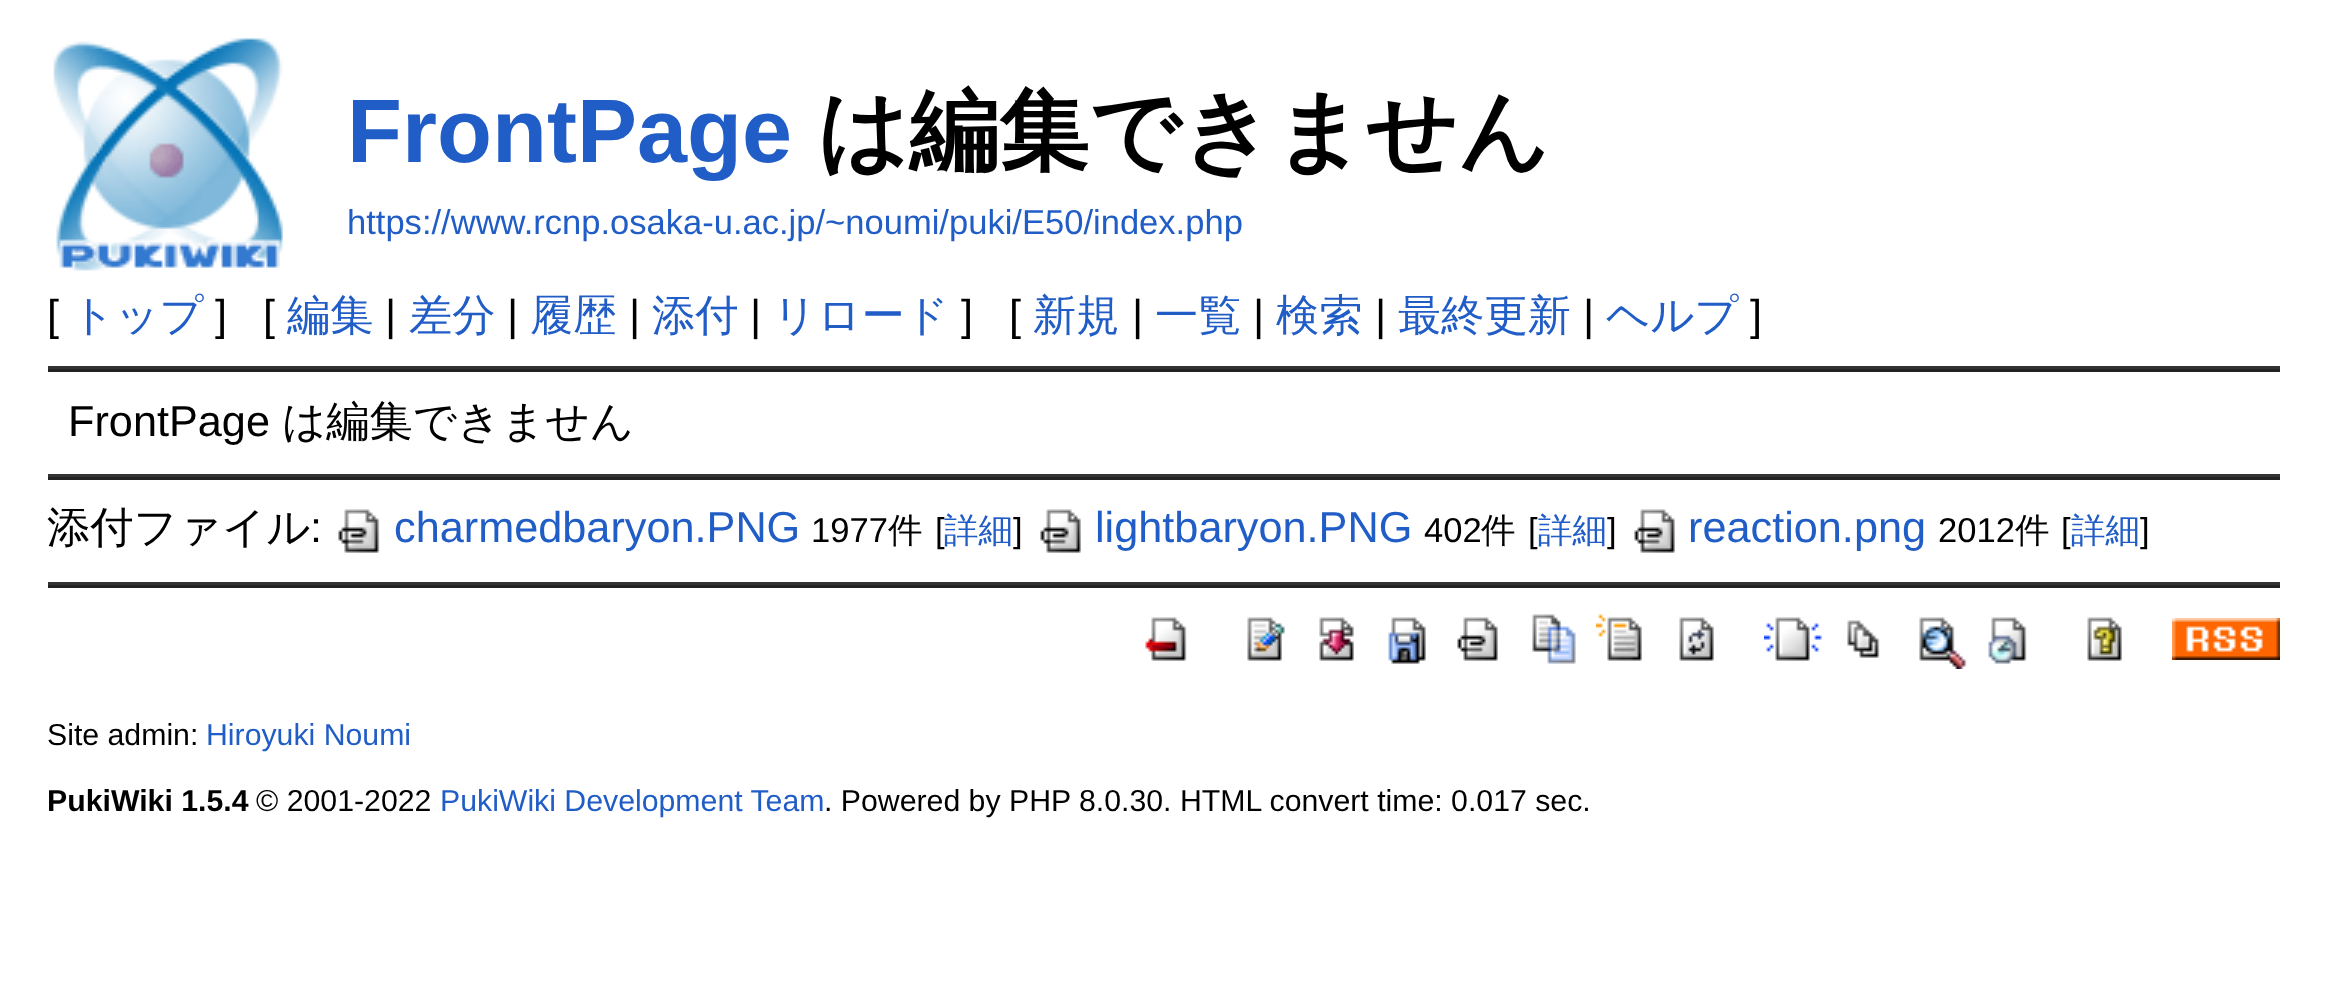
async function draw(canvas) {
  canvas.width = 2325;
  canvas.height = 999;
  const ctx = canvas.getContext('2d');
  ctx.miterLimit = 4;
  ctx.fontKerning = 'normal';
  function label(s, x, y, font, color) {
    ctx.font = font;
    ctx.fillStyle = color;
    ctx.fillText(s, x, y);
  }
  function rect(x, y, w, h, color) {
    ctx.fillStyle = color;
    ctx.fillRect(x, y, w, h);
  }
  async function image(src, x, y, w, h) {
    const img = new Image();
    img.src = src;
    await img.decode();
    ctx.drawImage(img, x, y, w, h);
  }

  rect(0, 0, 2325, 999, '#fff');
  await image('assets/img1.png', 53, 38, 230, 233);
  label('FrontPage', 347, 162, 'bold 90px Liberation Sans', '#215dc6');
  label('は編集できません', 817, 162, 'bold 90px WenQuanYi Zen Hei', '#000');
  label('https://www.rcnp.osaka-u.ac.jp/~noumi/puki/E50/index.php', 347, 234, '34.55px Liberation Sans', '#215dc6');
  label('[', 47, 330, '43.25px Liberation Sans', '#000');
  label('トップ', 71, 330, '500 43.25px WenQuanYi Zen Hei', '#215dc6');
  label(']', 215, 330, '43.25px Liberation Sans', '#000');
  label('[', 263, 330, '43.25px Liberation Sans', '#000');
  label('編集', 287, 330, '500 43.25px WenQuanYi Zen Hei', '#215dc6');
  label('|', 385, 330, '43.25px Liberation Sans', '#000');
  label('差分', 409, 330, '500 43.25px WenQuanYi Zen Hei', '#215dc6');
  label('|', 507, 330, '43.25px Liberation Sans', '#000');
  label('履歴', 530, 330, '500 43.25px WenQuanYi Zen Hei', '#215dc6');
  label('|', 629, 330, '43.25px Liberation Sans', '#000');
  label('添付', 652, 330, '500 43.25px WenQuanYi Zen Hei', '#215dc6');
  label('|', 750, 330, '43.25px Liberation Sans', '#000');
  label('リロード', 773, 330, '500 43.25px WenQuanYi Zen Hei', '#215dc6');
  label(']', 961, 330, '43.25px Liberation Sans', '#000');
  label('[', 1009, 330, '43.25px Liberation Sans', '#000');
  label('新規', 1033, 330, '500 43.25px WenQuanYi Zen Hei', '#215dc6');
  label('|', 1132, 330, '43.25px Liberation Sans', '#000');
  label('一覧', 1155, 330, '500 43.25px WenQuanYi Zen Hei', '#215dc6');
  label('|', 1253, 330, '43.25px Liberation Sans', '#000');
  label('検索', 1276, 330, '500 43.25px WenQuanYi Zen Hei', '#215dc6');
  label('|', 1375, 330, '43.25px Liberation Sans', '#000');
  label('最終更新', 1398, 330, '500 43.25px WenQuanYi Zen Hei', '#215dc6');
  label('|', 1583, 330, '43.25px Liberation Sans', '#000');
  label('ヘルプ', 1606, 330, '500 43.25px WenQuanYi Zen Hei', '#215dc6');
  label(']', 1750, 330, '43.25px Liberation Sans', '#000');
  rect(48, 366, 2232, 3, '#333');
  rect(48, 369, 2232, 3, '#222');
  label('FrontPage', 68, 436, '43.25px Liberation Sans', '#000');
  label('は編集できません', 282, 436, '500 43.25px WenQuanYi Zen Hei', '#000');
  rect(48, 474, 2232, 3, '#333');
  rect(48, 477, 2232, 3, '#222');
  label('添付ファイル', 47, 542, '500 43.25px WenQuanYi Zen Hei', '#000');
  label(':', 310, 542, '43.25px Liberation Sans', '#000');
  await image('assets/img2.png', 338, 509, 42, 44);
  label('charmedbaryon.PNG', 394, 542, '43.25px Liberation Sans', '#215dc6');
  label('1977', 811, 542, '34.55px Liberation Sans', '#000');
  label('件', 888, 542, '500 34.55px WenQuanYi Zen Hei', '#000');
  label('[', 935, 542, '34.55px Liberation Sans', '#000');
  label('詳細', 944, 542, '500 34.55px WenQuanYi Zen Hei', '#215dc6');
  label(']', 1013, 542, '34.55px Liberation Sans', '#000');
  await image('assets/img3.png', 1040, 509, 41, 44);
  label('lightbaryon.PNG', 1095, 542, '43.25px Liberation Sans', '#215dc6');
  label('402', 1424, 542, '34.55px Liberation Sans', '#000');
  label('件', 1481, 542, '500 34.55px WenQuanYi Zen Hei', '#000');
  label('[', 1528, 542, '34.55px Liberation Sans', '#000');
  label('詳細', 1538, 542, '500 34.55px WenQuanYi Zen Hei', '#215dc6');
  label(']', 1607, 542, '34.55px Liberation Sans', '#000');
  await image('assets/img4.png', 1634, 509, 41, 44);
  label('reaction.png', 1688, 542, '43.25px Liberation Sans', '#215dc6');
  label('2012', 1938, 542, '34.55px Liberation Sans', '#000');
  label('件', 2015, 542, '500 34.55px WenQuanYi Zen Hei', '#000');
  label('[', 2061, 542, '34.55px Liberation Sans', '#000');
  label('詳細', 2071, 542, '500 34.55px WenQuanYi Zen Hei', '#215dc6');
  label(']', 2140, 542, '34.55px Liberation Sans', '#000');
  rect(48, 582, 2232, 3, '#333');
  rect(48, 585, 2232, 3, '#222');
  await image('assets/img5.png', 1145, 617, 42, 44);
  await image('assets/img6.png', 1247, 617, 38, 44);
  await image('assets/img7.png', 1319, 617, 35, 44);
  await image('assets/img8.png', 1388, 617, 38, 47);
  await image('assets/img4.png', 1457, 617, 41, 44);
  await image('assets/img9.png', 1532, 614, 44, 50);
  await image('assets/img10.png', 1596, 614, 46, 47);
  await image('assets/img11.png', 1679, 617, 35, 44);
  await image('assets/img12.png', 1764, 617, 58, 44);
  await image('assets/img13.png', 1847, 620, 33, 38);
  await image('assets/img14.png', 1919, 617, 48, 52);
  await image('assets/img15.png', 1988, 617, 39, 47);
  await image('assets/img16.png', 2087, 617, 35, 44);
  await image('assets/img17.png', 2172, 618, 108, 42);
  label('Site admin:', 47, 745, '30.25px Liberation Sans', '#000');
  label('Hiroyuki Noumi', 206, 745, '30.25px Liberation Sans', '#215dc6');
  label('PukiWiki 1.5.4', 47, 811, 'bold 30.25px Liberation Sans', '#000');
  label('© 2001-2022', 256, 811, '30.25px Liberation Sans', '#000');
  label('PukiWiki Development Team', 440, 811, '30.25px Liberation Sans', '#215dc6');
  label('. Powered by PHP 8.0.30. HTML convert time: 0.017 sec.', 824, 811, '30.25px Liberation Sans', '#000');
}

draw(document.querySelector('canvas'));
